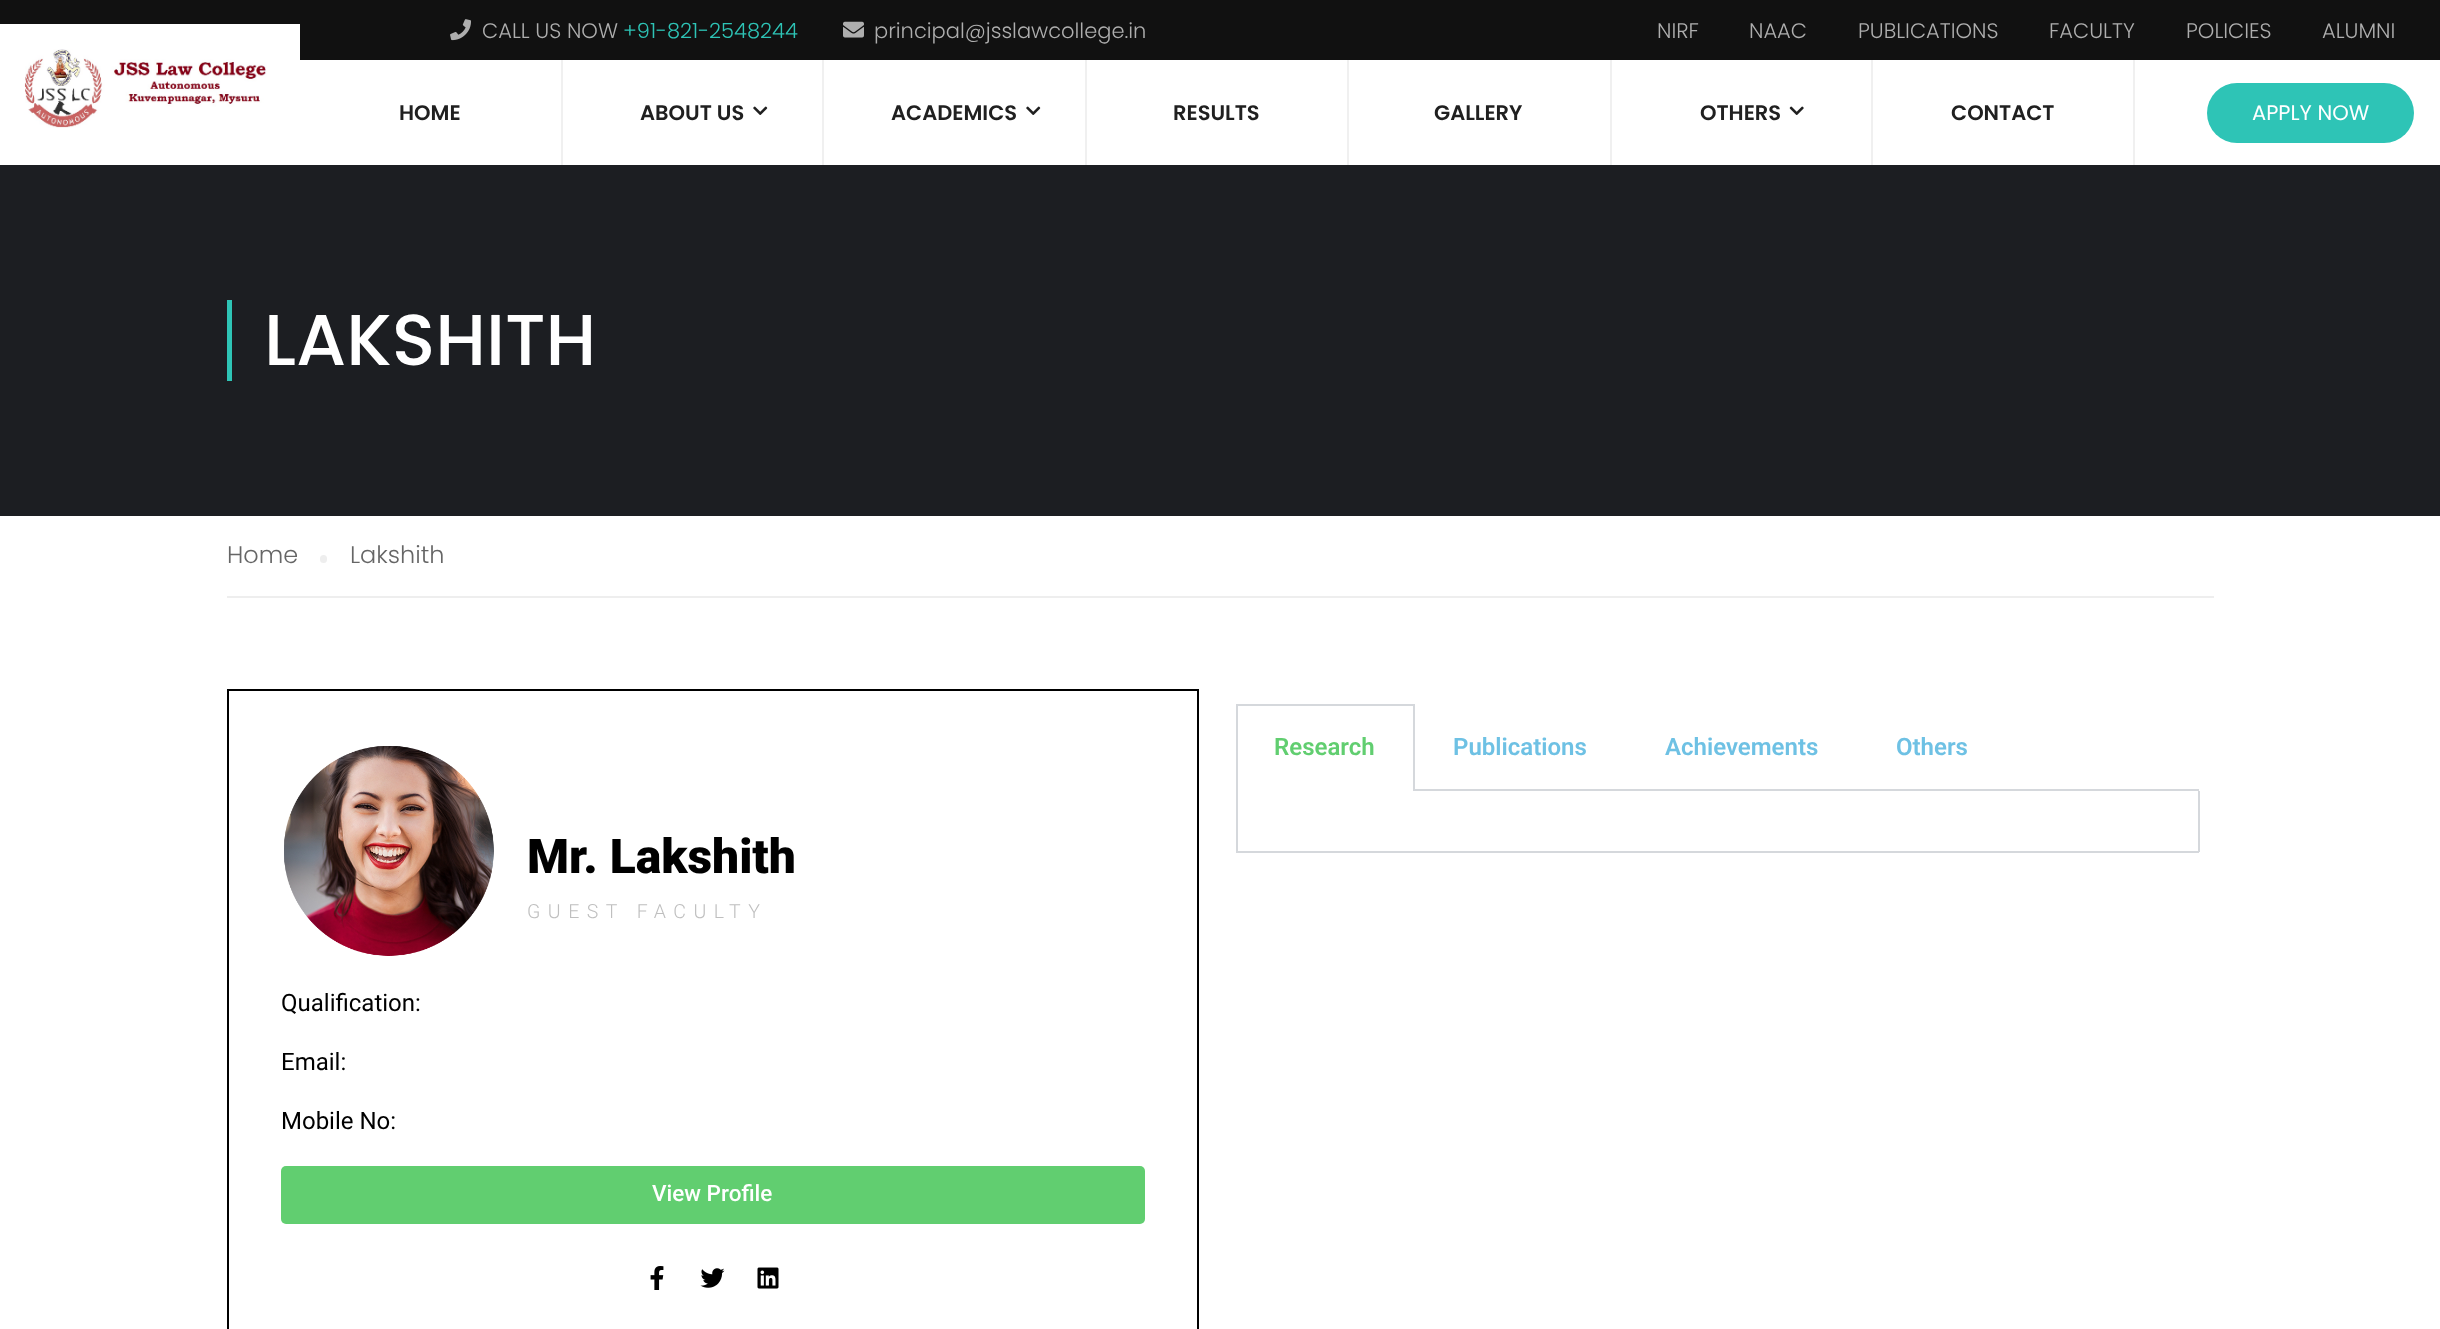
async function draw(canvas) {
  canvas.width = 2440;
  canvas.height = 1329;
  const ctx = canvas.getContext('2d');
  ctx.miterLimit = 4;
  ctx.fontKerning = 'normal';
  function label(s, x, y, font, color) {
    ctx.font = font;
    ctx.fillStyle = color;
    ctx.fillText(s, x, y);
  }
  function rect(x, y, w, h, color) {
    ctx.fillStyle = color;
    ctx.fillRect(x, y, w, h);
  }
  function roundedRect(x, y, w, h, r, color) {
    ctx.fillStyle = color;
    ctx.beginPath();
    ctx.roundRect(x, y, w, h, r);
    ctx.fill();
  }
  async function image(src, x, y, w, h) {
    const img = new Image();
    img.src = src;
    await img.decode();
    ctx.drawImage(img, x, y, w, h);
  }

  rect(0, 0, 2440, 1329, '#fff');
  rect(0, 0, 2440, 60, '#111');
  await image('assets/img1.png', 450, 19, 21, 22);
  label('CALL US NOW', 482, 38, '300 21px Poppins', '#aeaeae');
  label('+91-821-2548244', 623, 38, '300 21px Poppins', '#2ec4b6');
  await image('assets/img2.png', 843, 21, 21, 17);
  label('principal@jsslawcollege.in', 874, 38, '300 21px Poppins', '#aeaeae');
  label('NIRF', 1657, 38, '300 21px Poppins', '#aeaeae');
  label('NAAC', 1749, 38, '300 21px Poppins', '#aeaeae');
  label('PUBLICATIONS', 1858, 38, '300 21px Poppins', '#aeaeae');
  label('FACULTY', 2049, 38, '300 21px Poppins', '#aeaeae');
  label('POLICIES', 2186, 38, '300 21px Poppins', '#aeaeae');
  label('ALUMNI', 2322, 38, '300 21px Poppins', '#aeaeae');
  rect(0, 24, 300, 36, '#fff');
  await image('assets/img3.png', 24, 49, 243, 79);
  rect(561, 60, 2, 105, '#f0f0f0');
  label('HOME', 399, 120, '600 21px Poppins', '#202020');
  rect(822, 60, 2, 105, '#f0f0f0');
  label('ABOUT US', 640, 120, '600 21px Poppins', '#202020');
  await image('assets/img4.png', 753, 106, 15, 9);
  rect(1085, 60, 2, 105, '#f0f0f0');
  label('ACADEMICS', 891, 120, '600 21px Poppins', '#202020');
  await image('assets/img4.png', 1026, 106, 15, 9);
  rect(1347, 60, 2, 105, '#f0f0f0');
  label('RESULTS', 1173, 120, '600 21px Poppins', '#202020');
  rect(1610, 60, 2, 105, '#f0f0f0');
  label('GALLERY', 1434, 120, '600 21px Poppins', '#202020');
  rect(1871, 60, 2, 105, '#f0f0f0');
  label('OTHERS', 1700, 120, '600 21px Poppins', '#202020');
  await image('assets/img5.png', 1789, 106, 15, 9);
  rect(2133, 60, 2, 105, '#f0f0f0');
  label('CONTACT', 1951, 120, '600 21px Poppins', '#202020');
  roundedRect(2207, 83, 207, 60, 30, '#2ec4b6');
  label('APPLY NOW', 2252, 120, '21px Poppins', '#fff');
  rect(0, 165, 2440, 351, '#1c1e22');
  rect(227, 300, 5, 81, '#2ec4b6');
  label('LAKSHITH', 264, 365, '500 72px Poppins', '#fff');
  rect(227, 596, 1987, 2, '#eee');
  label('Home', 227, 563, '300 24px Poppins', '#666');
  roundedRect(320, 555, 7, 8, 3.5, '#eee');
  label('Lakshith', 350, 563, '300 24px Poppins', '#666');
  rect(1236, 704, 179, 2, '#d5d8dc');
  rect(1413, 704, 2, 87, '#d5d8dc');
  rect(1236, 704, 2, 87, '#d5d8dc');
  label('Research', 1274, 755, '600 24px Roboto', '#61ce70');
  rect(1413, 789, 786, 2, '#d5d8dc');
  label('Publications', 1453, 755, '600 24px Roboto', '#6ec1e4');
  label('Achievements', 1665, 755, '600 24px Roboto', '#6ec1e4');
  label('Others', 1896, 755, '600 24px Roboto', '#6ec1e4');
  rect(2198, 791, 2, 61, '#d5d8dc');
  rect(1236, 851, 963, 2, '#d5d8dc');
  rect(1236, 791, 2, 61, '#d5d8dc');
  ctx.strokeStyle = '#000';
  ctx.lineWidth = 2;
  ctx.strokeRect(228, 690, 970, 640);
  await image('assets/img6.png', 284, 746, 210, 210);
  label('Mr. Lakshith', 527, 873, '900 48px Roboto', '#000');
  ctx.letterSpacing = '7.5px';
  label('GUEST FACULTY', 527, 918, '300 19.5px Roboto', '#bfbfbf');
  ctx.letterSpacing = '0px';
  label('Qualification:', 281, 1011, '24px Roboto', '#000');
  label('Email:', 281, 1070, '24px Roboto', '#000');
  label('Mobile No:', 281, 1129, '24px Roboto', '#000');
  roundedRect(281, 1166, 864, 58, 5, '#61ce70');
  label('View Profile', 652, 1201, '500 22.5px Roboto', '#fff');
  await image('assets/img7.png', 650, 1266, 14, 24);
  await image('assets/img8.png', 700, 1268, 25, 20);
  await image('assets/img9.png', 757, 1267, 22, 22);
}

draw(document.querySelector('canvas'));
